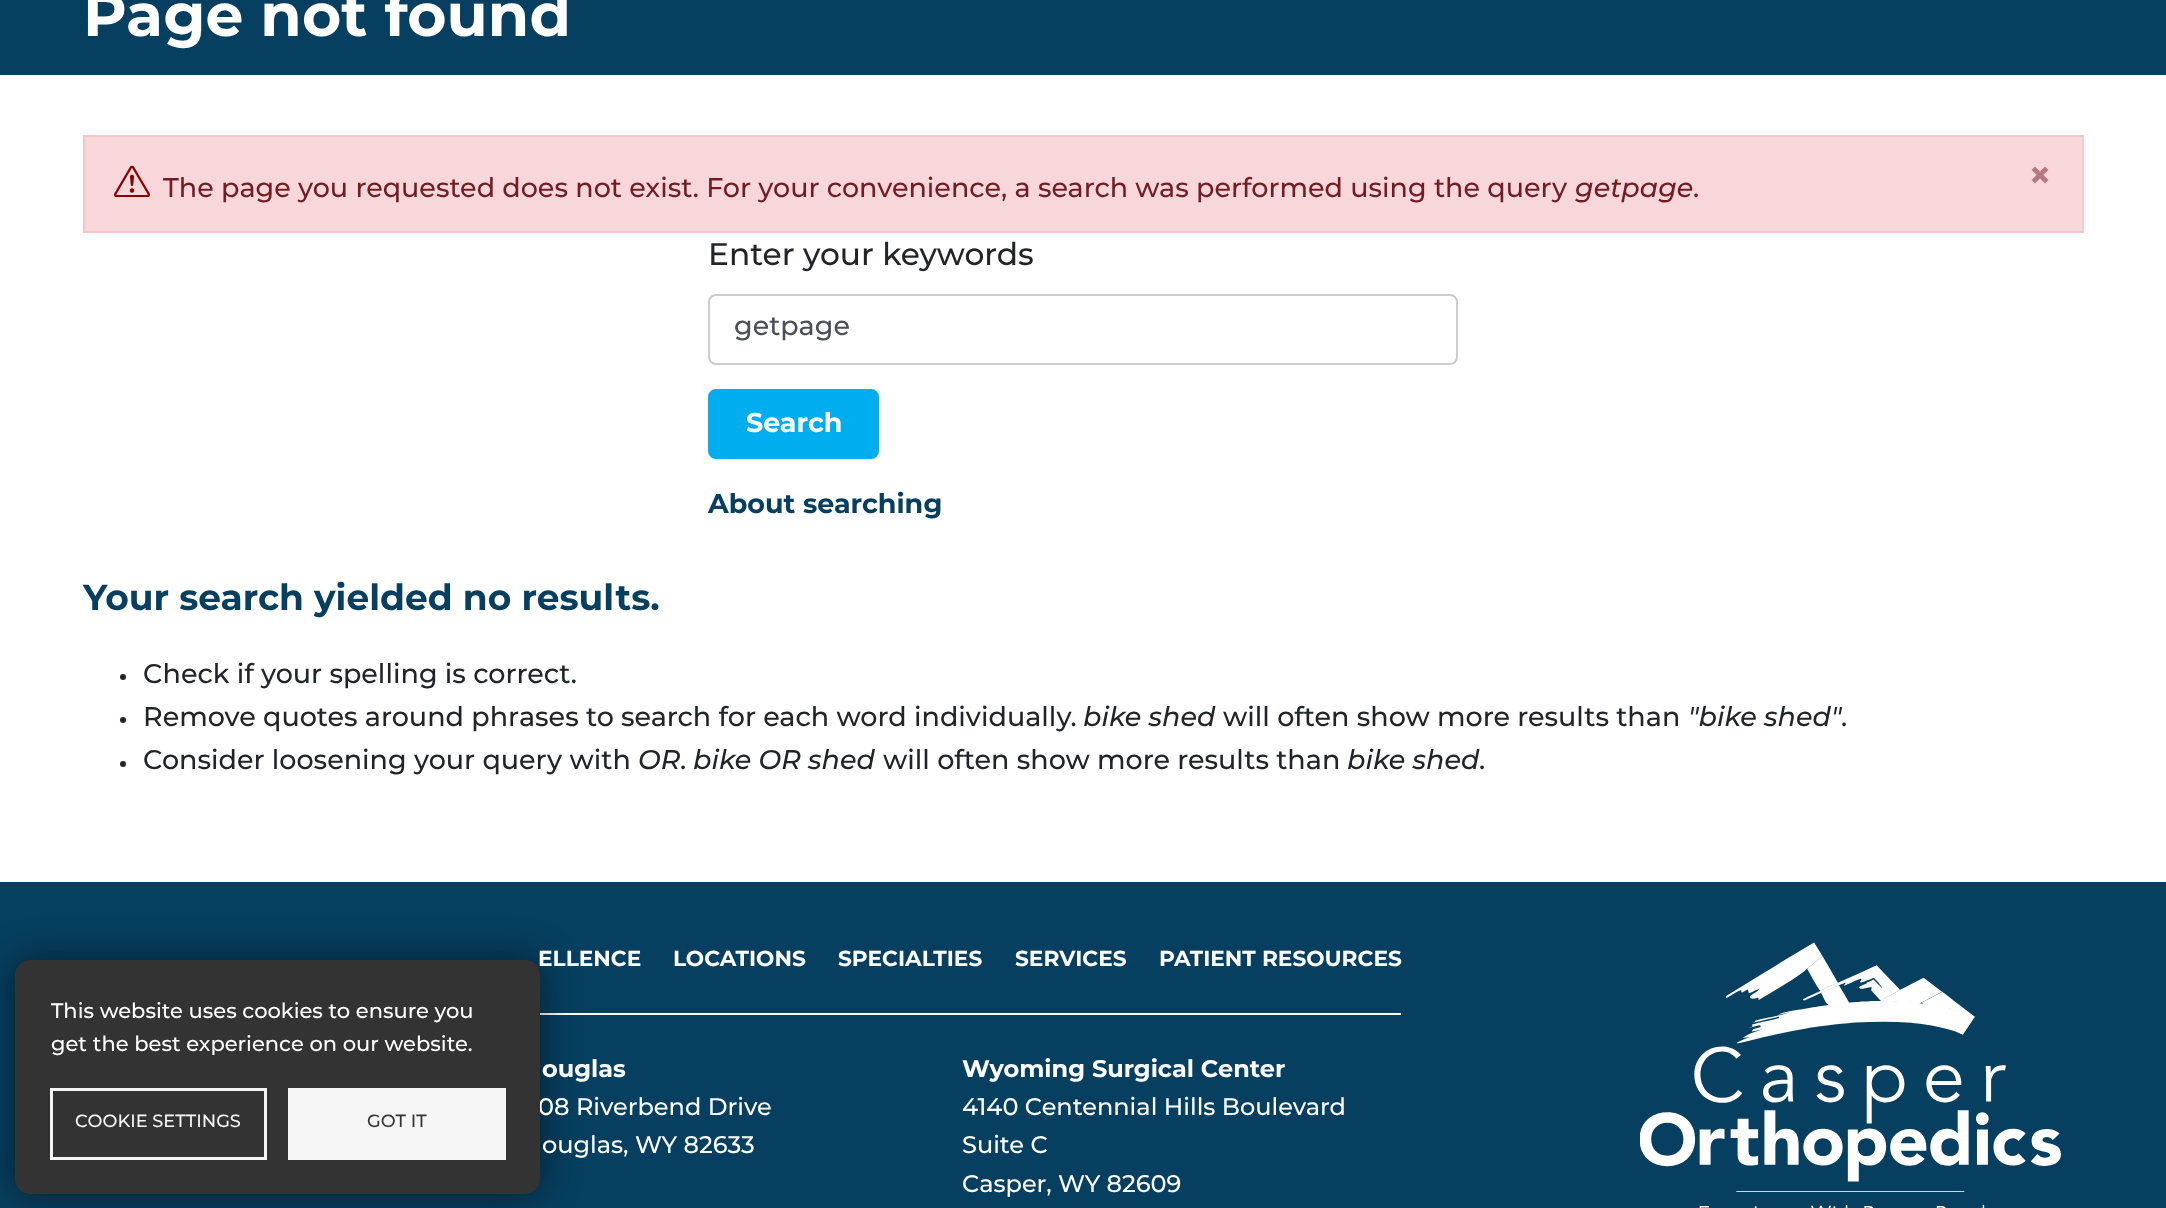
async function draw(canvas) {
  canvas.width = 2166;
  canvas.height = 1208;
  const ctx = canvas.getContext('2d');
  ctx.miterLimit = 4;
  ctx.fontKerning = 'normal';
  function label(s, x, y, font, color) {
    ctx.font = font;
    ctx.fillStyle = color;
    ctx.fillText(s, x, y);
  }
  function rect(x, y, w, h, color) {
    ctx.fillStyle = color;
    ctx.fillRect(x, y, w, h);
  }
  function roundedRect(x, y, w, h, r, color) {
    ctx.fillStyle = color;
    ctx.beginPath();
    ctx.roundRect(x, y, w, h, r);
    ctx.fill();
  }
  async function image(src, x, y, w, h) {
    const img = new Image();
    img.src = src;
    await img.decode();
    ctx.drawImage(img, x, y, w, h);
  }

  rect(0, 0, 2166, 1208, '#fff');
  rect(0, 0, 2166, 75, '#073f60');
  label('Page not found', 83, 36, 'bold 60px Montserrat', '#fff');
  ctx.fillStyle = '#f8d7da';
  ctx.beginPath();
  ctx.rect(84, 136, 1999, 96);
  ctx.fill();
  ctx.strokeStyle = '#f5c6cb';
  ctx.lineWidth = 2;
  ctx.stroke();
  await image('assets/img1.png', 114, 165, 36, 32);
  label('The page you requested does not exist. For your convenience, a search was performed using the query', 163, 197, '500 27px Montserrat', '#721c24');
  label('getpage', 1575, 197, 'italic 500 27px Montserrat', '#721c24');
  label('.', 1693, 197, '500 27px Montserrat', '#721c24');
  label('×', 2028, 189, 'bold 40px Montserrat', '#b57a7f');
  label('Enter your keywords', 708, 265, '500 31.25px Montserrat', '#212529');
  ctx.beginPath();
  ctx.roundRect(709, 295, 748, 69, 7);
  ctx.strokeStyle = '#ccc';
  ctx.stroke();
  label('getpage', 734, 335, '500 27px Montserrat', '#495057');
  ctx.fillStyle = '#00aeef';
  ctx.beginPath();
  ctx.roundRect(709, 390, 169, 68, 7);
  ctx.fill();
  ctx.strokeStyle = '#00aeef';
  ctx.stroke();
  label('Search', 746, 432, 'bold 27px Montserrat', '#fff');
  label('About searching', 708, 513, 'bold 27px Montserrat', '#073f60');
  label('Your search yielded no results.', 83, 610, 'bold 36px Montserrat', '#073f60');
  ctx.fillStyle = '#212529';
  ctx.beginPath();
  ctx.arc(123, 677, 3, 0, 2 * Math.PI);
  ctx.fill();
  label('Check if your spelling is correct.', 143, 683, '500 27px Montserrat', '#212529');
  ctx.beginPath();
  ctx.arc(123, 720, 3, 0, 2 * Math.PI);
  ctx.fill();
  label('Remove quotes around phrases to search for each word individually.', 143, 726, '500 27px Montserrat', '#212529');
  label('bike shed', 1083, 726, 'italic 500 27px Montserrat', '#212529');
  label('will often show more results than', 1223, 726, '500 27px Montserrat', '#212529');
  label('"bike shed"', 1688, 726, 'italic 500 27px Montserrat', '#212529');
  label('.', 1841, 726, '500 27px Montserrat', '#212529');
  ctx.beginPath();
  ctx.arc(123, 764, 3, 0, 2 * Math.PI);
  ctx.fill();
  label('Consider loosening your query with', 143, 769, '500 27px Montserrat', '#212529');
  label('OR', 638, 769, 'italic 500 27px Montserrat', '#212529');
  label('bike OR shed', 693, 769, 'italic 500 27px Montserrat', '#212529');
  label('will often show more results than', 883, 769, '500 27px Montserrat', '#212529');
  label('bike shed', 1347, 769, 'italic 500 27px Montserrat', '#212529');
  label('.', 680, 769, '500 27px Montserrat', '#212529');
  label('.', 1479, 769, '500 27px Montserrat', '#212529');
  rect(0, 882, 2166, 326, '#073f60');
  rect(540, 1013, 861, 2, '#fff');
  ctx.fillStyle = '#00000080';
  ctx.filter = 'blur(19px)';
  ctx.beginPath();
  ctx.roundRect(15, 960, 525, 234, 15);
  ctx.fill();
  ctx.filter = 'none';
  label('ELLENCE', 538, 966, 'bold 21.7px Montserrat', '#fff');
  label('08 Riverbend Drive', 538, 1115, '500 24px Montserrat', '#fff');
  roundedRect(15, 960, 525, 234, 15, '#333');
  label('This website uses cookies to ensure you', 51, 1018, '500 21px Montserrat', '#fff');
  label('get the best experience on our website.', 51, 1051, '500 21px Montserrat', '#fff');
  ctx.strokeStyle = '#f5f5f5';
  ctx.lineWidth = 3;
  ctx.strokeRect(51.5, 1089.5, 214, 69);
  label('COOKIE SETTINGS', 75, 1127, '500 17.75px Montserrat', '#f5f5f5');
  rect(288, 1088, 218, 72, '#f5f5f5');
  label('GOT IT', 367, 1127, '500 17.75px Montserrat', '#333');
  label('LOCATIONS', 673, 966, 'bold 21.7px Montserrat', '#fff');
  label('SPECIALTIES', 838, 966, 'bold 21.7px Montserrat', '#fff');
  label('SERVICES', 1015, 966, 'bold 21.7px Montserrat', '#fff');
  label('PATIENT RESOURCES', 1159, 966, 'bold 21.7px Montserrat', '#fff');
  label('ouglas', 542, 1077, 'bold 24px Montserrat', '#fff');
  label('ouglas, WY 82633', 542, 1153, '500 24px Montserrat', '#fff');
  label('Wyoming Surgical Center', 962, 1077, 'bold 24px Montserrat', '#fff');
  label('4140 Centennial Hills Boulevard', 962, 1115, '500 24px Montserrat', '#fff');
  label('Suite C', 962, 1153, '500 24px Montserrat', '#fff');
  label('Casper, WY 82609', 962, 1192, '500 24px Montserrat', '#fff');
  await image('assets/img2.png', 1640, 942, 421, 266);
}

draw(document.querySelector('canvas'));
